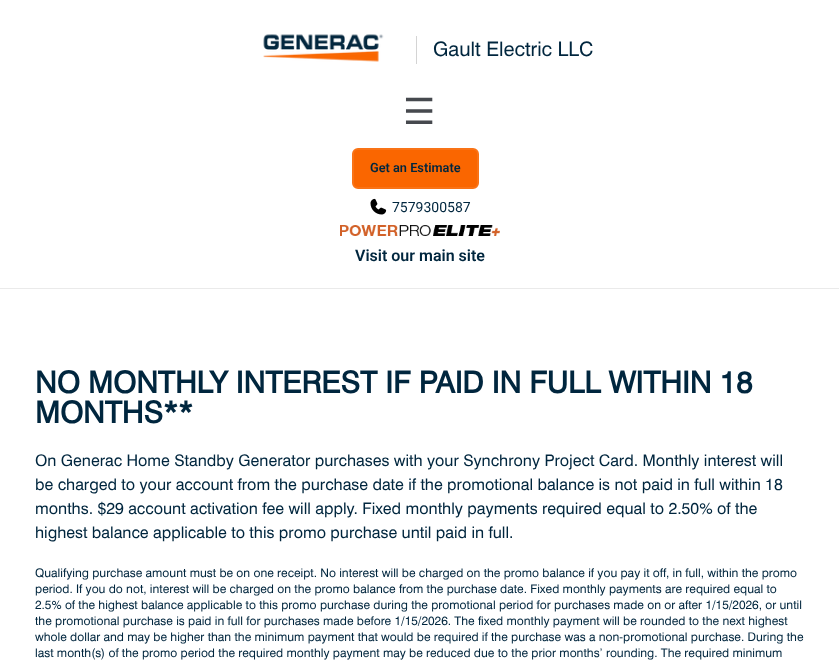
async function draw(canvas) {
  canvas.width = 839;
  canvas.height = 670;
  const ctx = canvas.getContext('2d');
  ctx.miterLimit = 4;
  ctx.fontKerning = 'normal';
  function label(s, x, y, font, color) {
    ctx.font = font;
    ctx.fillStyle = color;
    ctx.fillText(s, x, y);
  }
  function rect(x, y, w, h, color) {
    ctx.fillStyle = color;
    ctx.fillRect(x, y, w, h);
  }
  async function image(src, x, y, w, h) {
    const img = new Image();
    img.src = src;
    await img.decode();
    ctx.drawImage(img, x, y, w, h);
  }

  rect(0, 0, 839, 670, '#fff');
  rect(0, 288, 839, 1, '#eaeaea');
  await image('assets/img1.png', 263, 34, 121, 28);
  rect(416, 36, 1, 28, '#d4d4d4');
  label('Gault Electric LLC', 433, 56, '20px "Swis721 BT"', '#00263e');
  label('☰', 403, 124, '36px DejaVu Sans', '#46494e');
  ctx.fillStyle = '#fa6600';
  ctx.beginPath();
  ctx.roundRect(353, 149, 125, 39, 5);
  ctx.fill();
  ctx.strokeStyle = '#f97316';
  ctx.lineWidth = 2;
  ctx.stroke();
  label('Get an Estimate', 370, 172, '600 12.75px Roboto', '#00263e');
  await image('assets/img2.png', 370, 198, 17, 17);
  label('7579300587', 392, 212, '14px Roboto', '#00263e');
  await image('assets/img3.png', 340, 225, 160, 11);
  label('Visit our main site', 355, 261, '600 16px Roboto', '#00263e');
  label('NO MONTHLY INTEREST IF PAID IN FULL WITHIN 18', 35, 393, 'bold 30px "Swis721 BT"', '#00263e');
  label('MONTHS**', 35, 423, 'bold 30px "Swis721 BT"', '#00263e');
  label('On Generac Home Standby Generator purchases with your Synchrony Project Card. Monthly interest will', 35, 466, '16px "Swis721 BT"', '#00263e');
  label('be charged to your account from the purchase date if the promotional balance is not paid in full within 18', 35, 490, '16px "Swis721 BT"', '#00263e');
  label('months. $29 account activation fee will apply. Fixed monthly payments required equal to 2.50% of the', 35, 514, '16px "Swis721 BT"', '#00263e');
  label('highest balance applicable to this promo purchase until paid in full.', 35, 538, '16px "Swis721 BT"', '#00263e');
  label('Qualifying purchase amount must be on one receipt. No interest will be charged on the promo balance if you pay it off, in full, within the promo', 35, 577, '12px "Swis721 BT"', '#00263e');
  label('period. If you do not, interest will be charged on the promo balance from the purchase date. Fixed monthly payments are required equal to', 35, 593, '12px "Swis721 BT"', '#00263e');
  label('2.5% of the highest balance applicable to this promo purchase during the promotional period for purchases made on or after 1/15/2026, or until', 35, 609, '12px "Swis721 BT"', '#00263e');
  label('the promotional purchase is paid in full for purchases made before 1/15/2026. The fixed monthly payment will be rounded to the next highest', 35, 625, '12px "Swis721 BT"', '#00263e');
  label('whole dollar and may be higher than the minimum payment that would be required if the purchase was a non-promotional purchase. During the', 35, 641, '12px "Swis721 BT"', '#00263e');
  label('last month(s) of the promo period the required monthly payment may be reduced due to the prior months’ rounding. The required minimum', 35, 657, '12px "Swis721 BT"', '#00263e');
}

draw(document.querySelector('canvas'));
